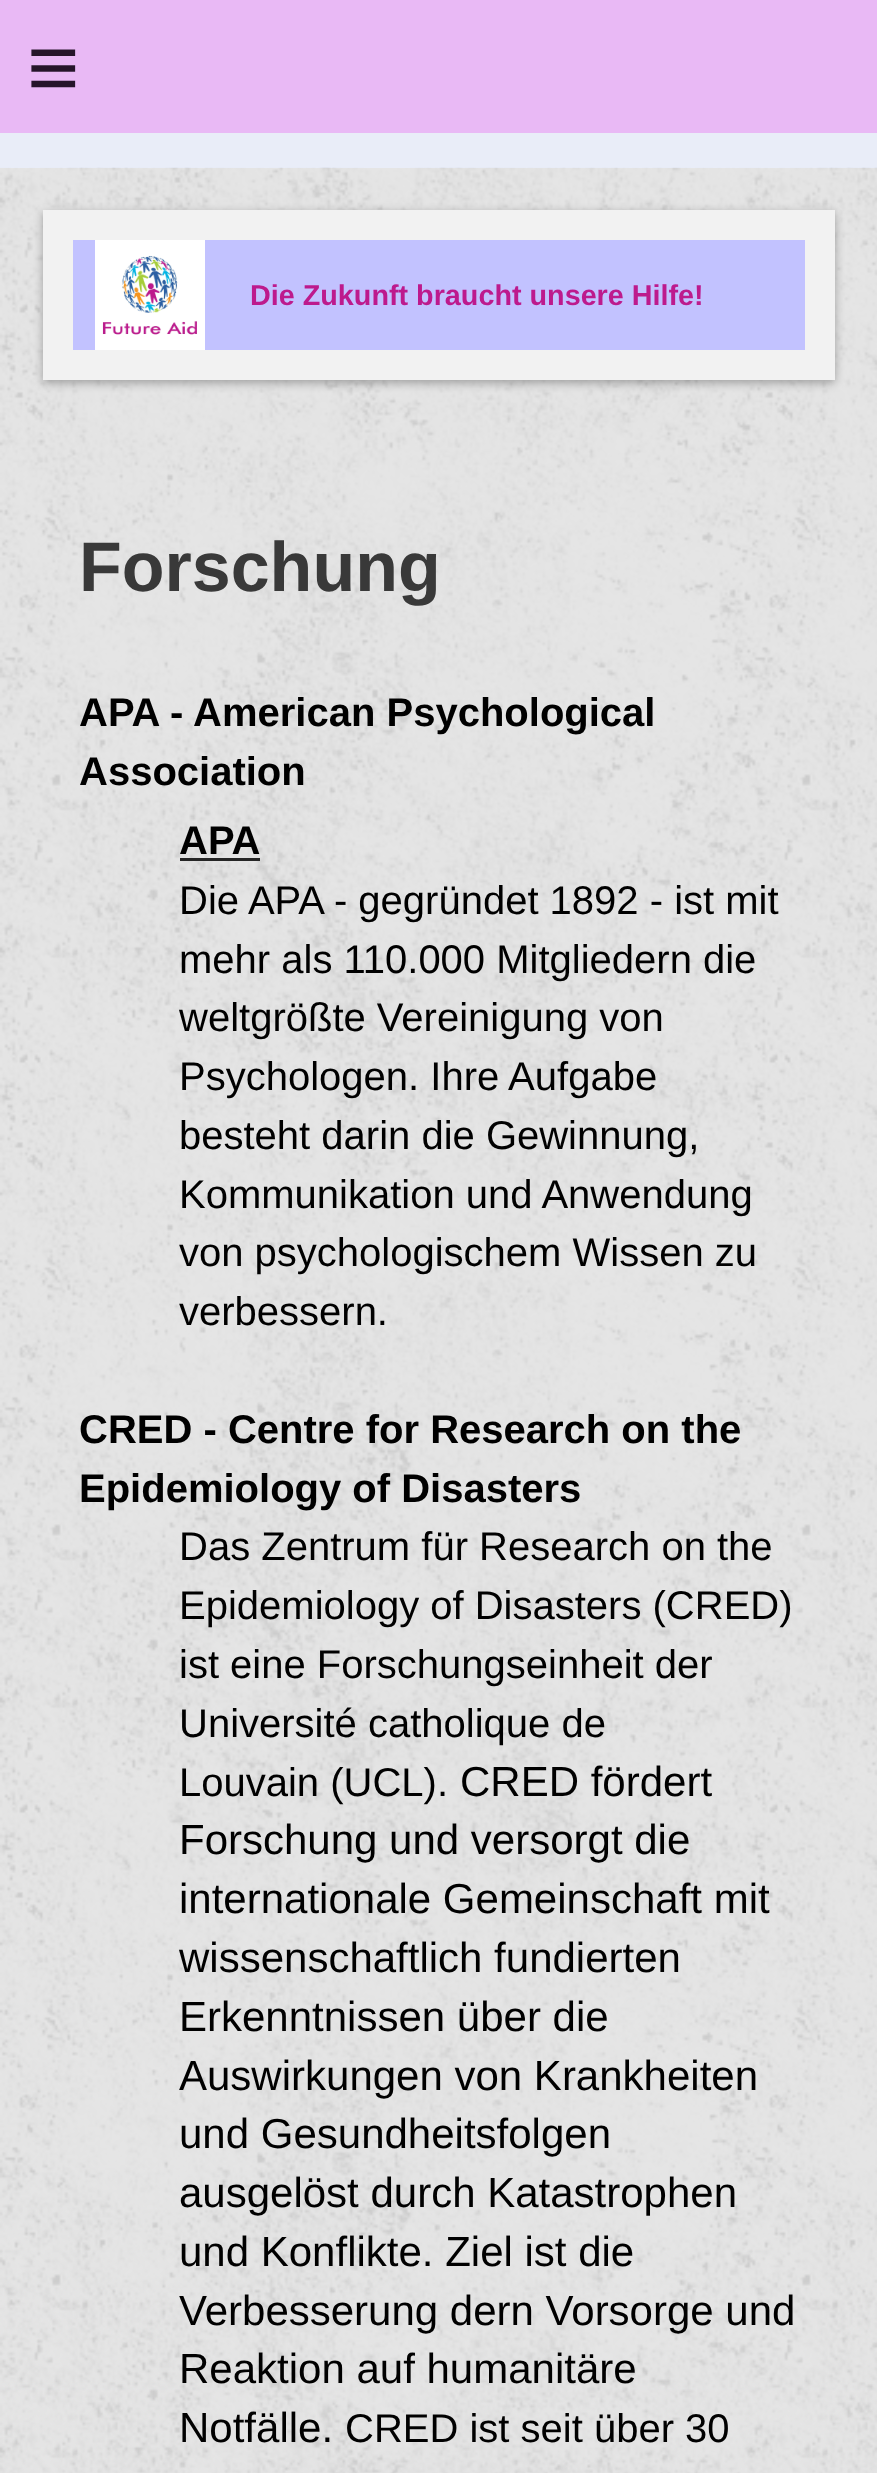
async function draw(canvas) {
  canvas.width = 877;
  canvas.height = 2473;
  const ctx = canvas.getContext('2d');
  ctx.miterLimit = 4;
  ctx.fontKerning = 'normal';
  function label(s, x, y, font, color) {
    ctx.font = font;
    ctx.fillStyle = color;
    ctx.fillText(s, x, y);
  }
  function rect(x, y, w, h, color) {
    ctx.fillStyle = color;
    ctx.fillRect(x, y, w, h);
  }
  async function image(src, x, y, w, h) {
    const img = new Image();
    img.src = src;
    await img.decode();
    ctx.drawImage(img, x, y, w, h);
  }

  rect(0, 0, 877, 2473, '#e9edf8');
  rect(0, 0, 877, 133, '#e9b9f5');
  ctx.letterSpacing = '26px';
  label('≡', 27, 98, '90px Liberation Sans', '#26152a');
  rect(0, 168, 877, 2305, '#e5e5e5');
  await image('assets/img1.png', 0, 167, 877, 2306);
  ctx.fillStyle = '#0000004d';
  ctx.filter = 'blur(5px)';
  ctx.beginPath();
  ctx.rect(43, 213, 792, 170);
  ctx.fill();
  ctx.filter = 'none';
  ctx.strokeStyle = '#f2f2f2';
  ctx.lineWidth = 30;
  ctx.strokeRect(58, 225, 762, 140);
  rect(73, 240, 732, 110, '#c2c2ff');
  await image('assets/img2.png', 95, 240, 110, 110);
  ctx.letterSpacing = '0px';
  label('Die Zukunft braucht unsere Hilfe!', 250, 305, 'bold 28.75px Liberation Sans', '#bd1a8d');
  label('Forschung', 79, 591, 'bold 70px Liberation Sans', '#393939');
  label('APA - American Psychological', 79, 726, 'bold 40px Liberation Sans', '#000');
  label('Association', 79, 785, 'bold 40px Liberation Sans', '#000');
  label('APA', 179, 854, 'bold 40px Liberation Sans', '#000');
  rect(180, 858, 80, 3, '#252525');
  label('Die APA - gegründet 1892 - ist mit', 179, 914, '40px Liberation Sans', '#000');
  label('mehr als 110.000 Mitgliedern die', 179, 973, '40px Liberation Sans', '#000');
  label('weltgrößte Vereinigung von', 179, 1031, '40px Liberation Sans', '#000');
  label('Psychologen. Ihre Aufgabe', 179, 1090, '40px Liberation Sans', '#000');
  label('besteht darin die Gewinnung,', 179, 1149, '40px Liberation Sans', '#000');
  label('Kommunikation und Anwendung', 179, 1208, '40px Liberation Sans', '#000');
  label('von psychologischem Wissen zu', 179, 1266, '40px Liberation Sans', '#000');
  label('verbessern.', 179, 1325, '40px Liberation Sans', '#000');
  label('CRED - Centre for Research on the', 79, 1443, 'bold 40px Liberation Sans', '#000');
  label('Epidemiology of Disasters', 79, 1502, 'bold 40px Liberation Sans', '#000');
  label('Das Zentrum für Research on the', 179, 1560, '40px Liberation Sans', '#000');
  label('Epidemiology of Disasters (CRED)', 179, 1619, '40px Liberation Sans', '#000');
  label('ist eine Forschungseinheit der', 179, 1678, '40px Liberation Sans', '#000');
  label('Université catholique de', 179, 1737, '40px Liberation Sans', '#000');
  label('Louvain (UCL).', 179, 1796, '40px Liberation Sans', '#000');
  label('CRED fördert', 460, 1796, '42px Liberation Sans', '#000');
  label('Forschung und versorgt die', 179, 1854, '42px Liberation Sans', '#000');
  label('internationale Gemeinschaft mit', 179, 1913, '42px Liberation Sans', '#000');
  label('wissenschaftlich fundierten', 179, 1972, '42px Liberation Sans', '#000');
  label('Erkenntnissen über die', 179, 2031, '42px Liberation Sans', '#000');
  label('Auswirkungen von Krankheiten', 179, 2090, '42px Liberation Sans', '#000');
  label('und Gesundheitsfolgen', 179, 2148, '42px Liberation Sans', '#000');
  label('ausgelöst durch Katastrophen', 179, 2207, '42px Liberation Sans', '#000');
  label('und Konflikte. Ziel ist die', 179, 2266, '42px Liberation Sans', '#000');
  label('Verbesserung dern Vorsorge und', 179, 2325, '42px Liberation Sans', '#000');
  label('Reaktion auf humanitäre', 179, 2383, '42px Liberation Sans', '#000');
  label('Notfälle.', 179, 2442, '42px Liberation Sans', '#000');
  label('CRED ist seit über 30', 345, 2442, '40px Liberation Sans', '#000');
}

draw(document.querySelector('canvas'));
